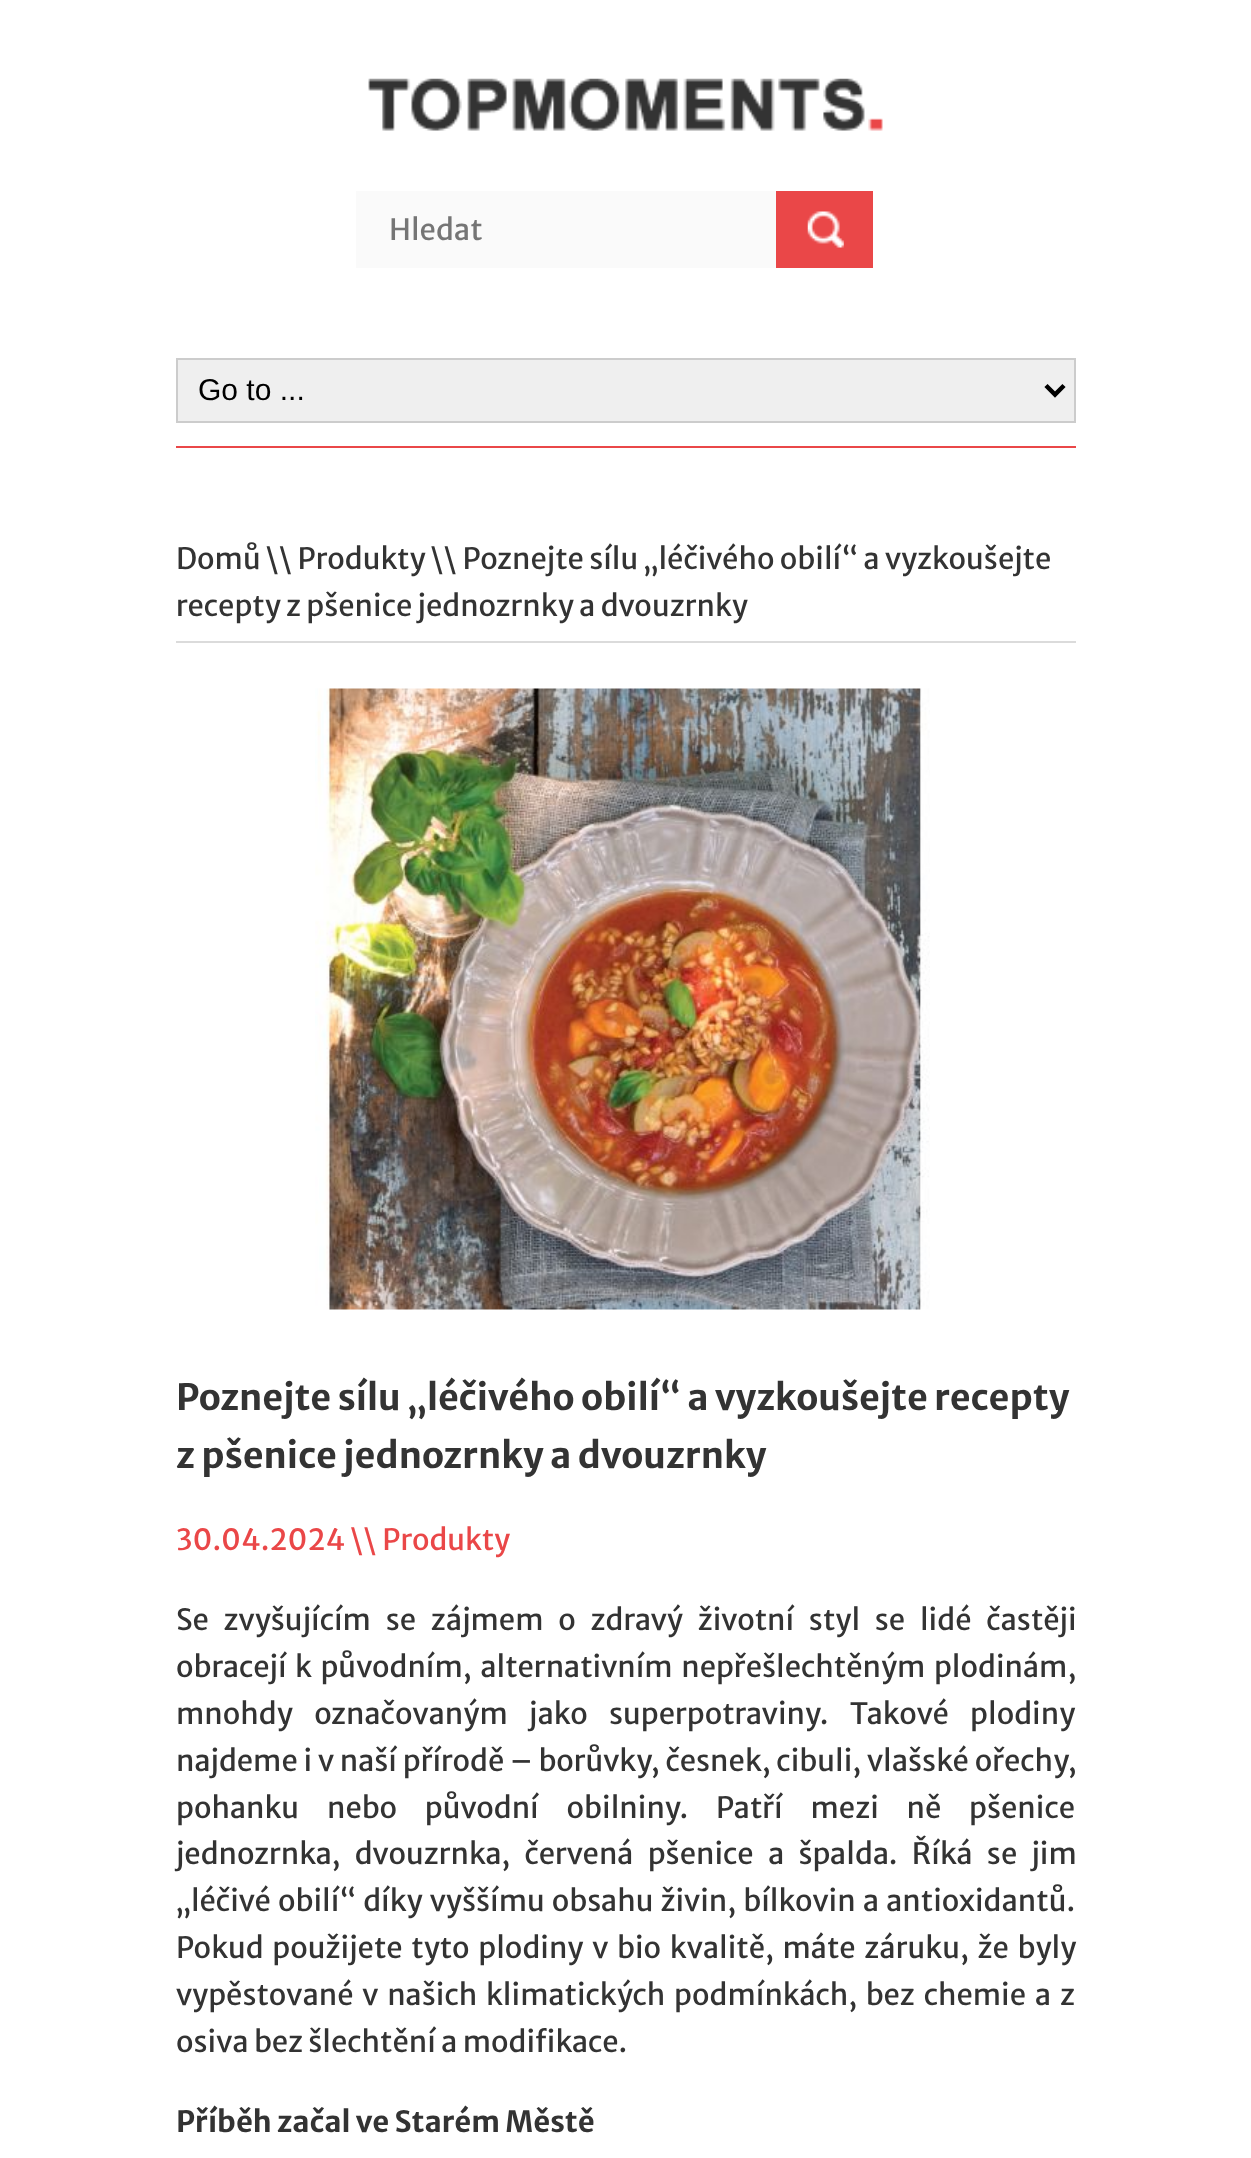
async function draw(canvas) {
  canvas.width = 1251;
  canvas.height = 2158;
  const ctx = canvas.getContext('2d');
  ctx.miterLimit = 4;
  ctx.fontKerning = 'normal';
  function label(s, x, y, font, color) {
    ctx.font = font;
    ctx.fillStyle = color;
    ctx.fillText(s, x, y);
  }
  function rect(x, y, w, h, color) {
    ctx.fillStyle = color;
    ctx.fillRect(x, y, w, h);
  }
  async function image(src, x, y, w, h) {
    const img = new Image();
    img.src = src;
    await img.decode();
    ctx.drawImage(img, x, y, w, h);
  }
  let path;

  rect(0, 0, 1251, 2158, '#fff');
  await image('assets/img1.png', 368, 78, 515, 53);
  rect(356, 191, 420, 77, '#fafafa');
  label('Hledat', 389, 240, '29.25px Merriweather Sans', '#757575');
  rect(776, 191, 97, 77, '#ea4748');
  await image('assets/img2.png', 807, 211, 37, 37);
  rect(176, 446, 900, 2, '#ea4748');
  ctx.fillStyle = '#efefef';
  ctx.beginPath();
  ctx.rect(177, 359, 898, 63);
  ctx.fill();
  ctx.strokeStyle = '#ccc';
  ctx.lineWidth = 2;
  ctx.stroke();
  path = new Path2D('M1046 385.5L1055 394.5L1064 385.5');
  ctx.strokeStyle = '#000';
  ctx.lineWidth = 4.5;
  ctx.stroke(path);
  label('Go to ...', 198, 400, '30px Liberation Sans', '#000');
  rect(176, 641, 900, 2, '#dbdbdb');
  label('Domů \\\\ Produkty \\\\ Poznejte sílu „léčivého obilí“ a vyzkoušejte', 176, 569, '29.25px Merriweather Sans', '#333');
  label('recepty z pšenice jednozrnky a dvouzrnky', 176, 616, '29.25px Merriweather Sans', '#333');
  await image('assets/img3.png', 315, 688, 615, 622);
  label('Poznejte sílu „léčivého obilí“ a vyzkoušejte recepty', 176, 1410, 'bold 36px Merriweather Sans', '#333');
  label('z pšenice jednozrnky a dvouzrnky', 176, 1468, 'bold 36px Merriweather Sans', '#333');
  label('30.04.2024 \\\\ Produkty', 176, 1550, '29.25px Merriweather Sans', '#ea4748');
  ctx.wordSpacing = '9.5px';
  label('Se zvyšujícím se zájmem o zdravý životní styl se lidé častěji', 176, 1630, '29.25px Merriweather Sans', '#333');
  ctx.wordSpacing = '3.25px';
  label('obracejí k původním, alternativním nepřešlechtěným plodinám,', 176, 1677, '29.25px Merriweather Sans', '#333');
  ctx.wordSpacing = '16px';
  label('mnohdy označovaným jako superpotraviny. Takové plodiny', 176, 1724, '29.25px Merriweather Sans', '#333');
  ctx.wordSpacing = '0.5px';
  label('najdeme i v naší přírodě – borůvky, česnek, cibuli, vlašské ořechy,', 176, 1771, '29.25px Merriweather Sans', '#333');
  ctx.wordSpacing = '22.5px';
  label('pohanku nebo původní obilniny. Patří mezi ně pšenice', 176, 1818, '29.25px Merriweather Sans', '#333');
  ctx.wordSpacing = '9px';
  label('jednozrnka, dvouzrnka, červená pšenice a špalda. Říká se jim', 176, 1864, '29.25px Merriweather Sans', '#333');
  ctx.wordSpacing = '1.75px';
  label('„léčivé obilí“ díky vyššímu obsahu živin, bílkovin a antioxidantů.', 176, 1911, '29.25px Merriweather Sans', '#333');
  ctx.wordSpacing = '3.4px';
  label('Pokud použijete tyto plodiny v bio kvalitě, máte záruku, že byly', 176, 1958, '29.25px Merriweather Sans', '#333');
  ctx.wordSpacing = '3.5px';
  label('vypěstované v našich klimatických podmínkách, bez chemie a z', 176, 2005, '29.25px Merriweather Sans', '#333');
  ctx.wordSpacing = '0px';
  label('osiva bez šlechtění a modifikace.', 176, 2052, '29.25px Merriweather Sans', '#333');
  label('Příběh začal ve Starém Městě', 176, 2132, 'bold 29.25px Merriweather Sans', '#333');
}

draw(document.querySelector('canvas'));
